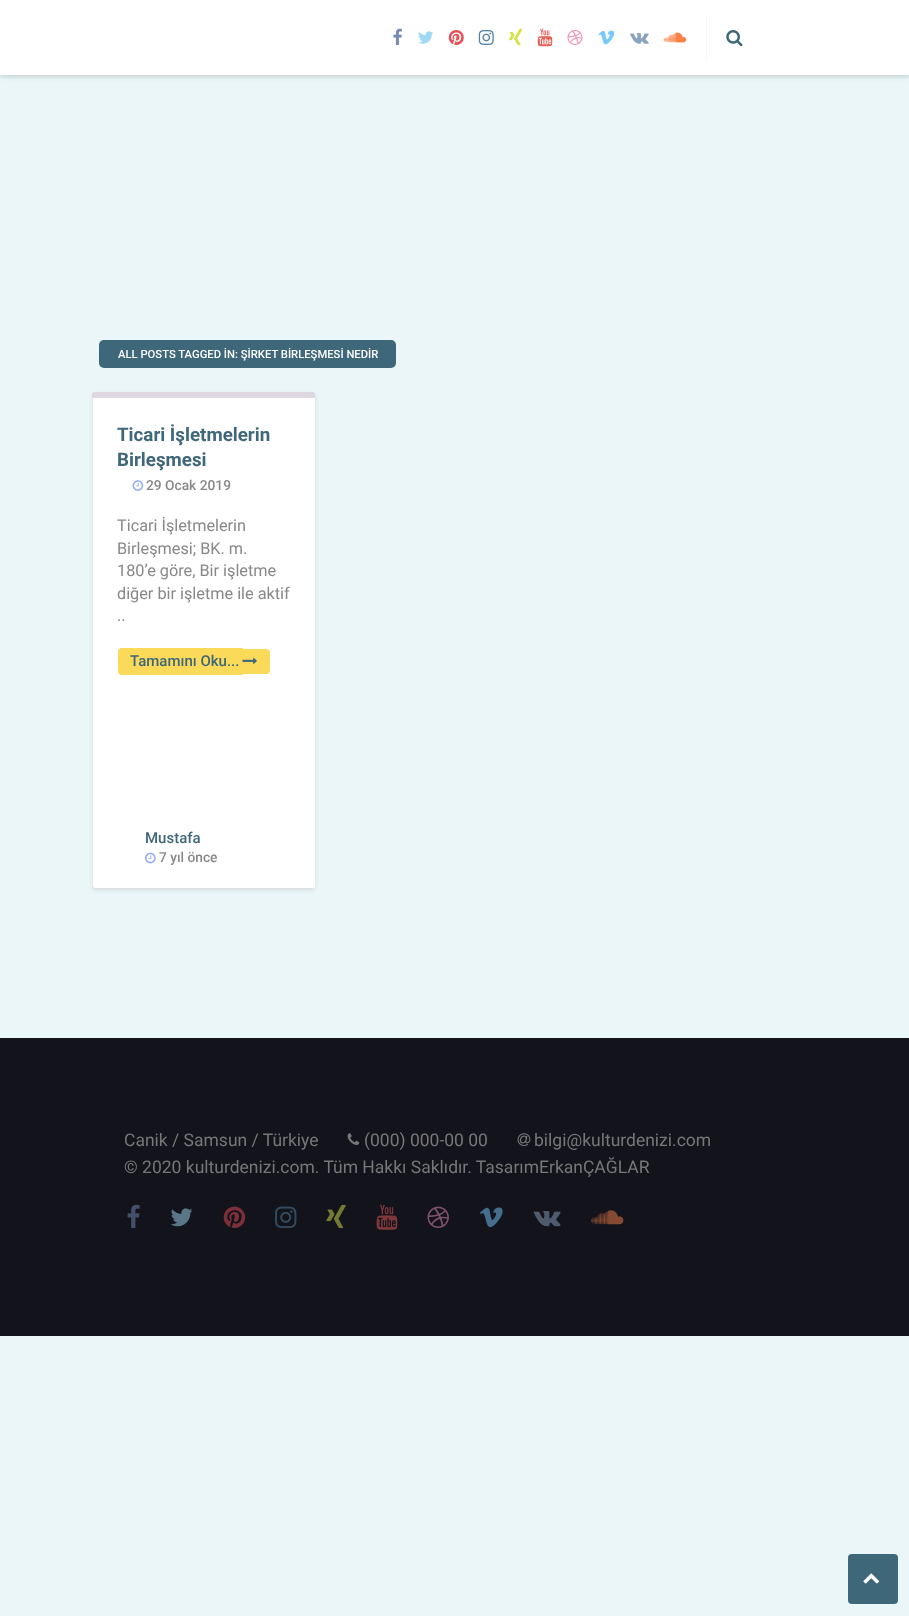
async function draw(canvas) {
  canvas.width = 909;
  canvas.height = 1616;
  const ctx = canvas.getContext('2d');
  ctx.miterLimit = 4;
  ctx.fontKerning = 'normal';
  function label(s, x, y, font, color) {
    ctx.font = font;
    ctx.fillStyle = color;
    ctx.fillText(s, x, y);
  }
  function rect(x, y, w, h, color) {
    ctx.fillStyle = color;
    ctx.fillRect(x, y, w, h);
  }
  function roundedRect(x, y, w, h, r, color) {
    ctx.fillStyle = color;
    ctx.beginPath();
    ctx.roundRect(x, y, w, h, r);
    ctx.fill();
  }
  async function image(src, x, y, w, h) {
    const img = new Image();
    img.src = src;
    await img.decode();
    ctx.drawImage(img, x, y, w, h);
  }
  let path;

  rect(0, 0, 909, 1616, '#ebf6f8');
  ctx.fillStyle = '#0000001a';
  ctx.filter = 'blur(3px)';
  ctx.beginPath();
  ctx.rect(0, 1, 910, 75);
  ctx.fill();
  ctx.filter = 'none';
  rect(0, 0, 909, 75, '#fff');
  ctx.save();
  ctx.beginPath();
  ctx.rect(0, 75, 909, 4);
  ctx.clip();
  ctx.fillStyle = '#0000001a';
  ctx.filter = 'blur(3px)';
  ctx.beginPath();
  ctx.rect(0, 1, 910, 75);
  ctx.fill();
  ctx.filter = 'none';
  ctx.restore();
  await image('assets/img1.png', 393, 28, 9, 17);
  await image('assets/img2.png', 418, 31, 15, 13);
  await image('assets/img3.png', 448, 30, 16, 15);
  await image('assets/img4.png', 478, 30, 16, 15);
  await image('assets/img5.png', 508, 28, 15, 17);
  await image('assets/img6.png', 537, 28, 16, 19);
  await image('assets/img7.png', 567, 30, 16, 15);
  await image('assets/img8.png', 598, 30, 17, 15);
  await image('assets/img9.png', 630, 33, 19, 11);
  await image('assets/img10.png', 663, 32, 24, 11);
  rect(706, 16, 1, 43, '#f6f6f6');
  await image('assets/img11.png', 726, 30, 17, 17);
  roundedRect(99, 340, 297, 28, 5, '#3f677a');
  label('ALL POSTS TAGGED İN: ŞİRKET BİRLEŞMESİ NEDİR', 118, 358, '500 11.25px Roboto', '#fff');
  ctx.fillStyle = '#0000001a';
  ctx.filter = 'blur(2.5px)';
  ctx.beginPath();
  ctx.roundRect(93, 394, 222, 496, 2.5);
  ctx.fill();
  ctx.filter = 'none';
  roundedRect(93, 393, 222, 496, 2.5, '#fff');
  ctx.fillStyle = '#ded9e0';
  path = new Path2D('M92 394L94 392H314C315 394 315 396 315 398H92Z');
  ctx.fill(path);
  ctx.fillStyle = '#dfdfdf';
  path = new Path2D('M92 888V887L95 888H312C314 888 315 887 315 886C315 887 314 888 313 889H94Z');
  ctx.fill(path);
  label('Ticari İşletmelerin', 117, 441, 'bold 18.75px Roboto', '#3f677a');
  label('Birleşmesi', 117, 466, 'bold 18.75px Roboto', '#3f677a');
  await image('assets/img12.png', 132, 480, 12, 11);
  label('29 Ocak 2019', 146, 490, '500 13.75px Roboto', '#888');
  label('Ticari İşletmelerin', 117, 531, '16.25px Roboto', '#888');
  label('Birleşmesi; BK. m.', 117, 554, '16.25px Roboto', '#888');
  label('180’e göre, Bir işletme', 117, 576, '16.25px Roboto', '#888');
  label('diğer bir işletme ile aktif', 117, 599, '16.25px Roboto', '#888');
  label('..', 117, 621, '16.25px Roboto', '#888');
  ctx.fillStyle = '#fbda59';
  ctx.beginPath();
  ctx.roundRect(118, 648, 125, 27, [4, 0, 0, 4]);
  ctx.fill();
  ctx.beginPath();
  ctx.roundRect(243, 649, 27, 25, [0, 4, 4, 0]);
  ctx.fill();
  label('Tamamını Oku...', 130, 666, '500 15px Roboto', '#3f677a');
  await image('assets/img13.png', 242, 657, 15, 7);
  label('Mustafa', 145, 843, '500 15px Roboto', '#3f677a');
  await image('assets/img14.png', 145, 852, 11, 12);
  label('7 yıl önce', 159, 862, '500 13.75px Roboto', '#888');
  rect(0, 1038, 909, 298, '#13131c');
  label('Canik / Samsun / Türkiye', 124, 1146, '17.5px Roboto', '#777');
  await image('assets/img15.png', 347, 1133, 13, 12);
  label('(000) 000-00 00', 364, 1146, '17.5px Roboto', '#777');
  await image('assets/img16.png', 517, 1133, 14, 13);
  label('bilgi@kulturdenizi.com', 534, 1146, '17.5px Roboto', '#777');
  label('© 2020 kulturdenizi.com. Tüm Hakkı Saklıdır. TasarımErkanÇAĞLAR', 124, 1173, '17.5px Roboto', '#777');
  await image('assets/img17.png', 127, 1204, 13, 25);
  await image('assets/img18.png', 171, 1208, 22, 19);
  await image('assets/img19.png', 223, 1206, 23, 22);
  await image('assets/img20.png', 275, 1206, 22, 22);
  await image('assets/img21.png', 326, 1204, 20, 25);
  await image('assets/img22.png', 376, 1204, 22, 26);
  await image('assets/img23.png', 427, 1206, 22, 22);
  await image('assets/img24.png', 480, 1207, 23, 21);
  await image('assets/img25.png', 533, 1211, 28, 16);
  await image('assets/img26.png', 591, 1210, 33, 15);
  roundedRect(848, 1554, 50, 50, 4, '#3f677a');
  await image('assets/img27.png', 863, 1573, 17, 11);
}

draw(document.querySelector('canvas'));
